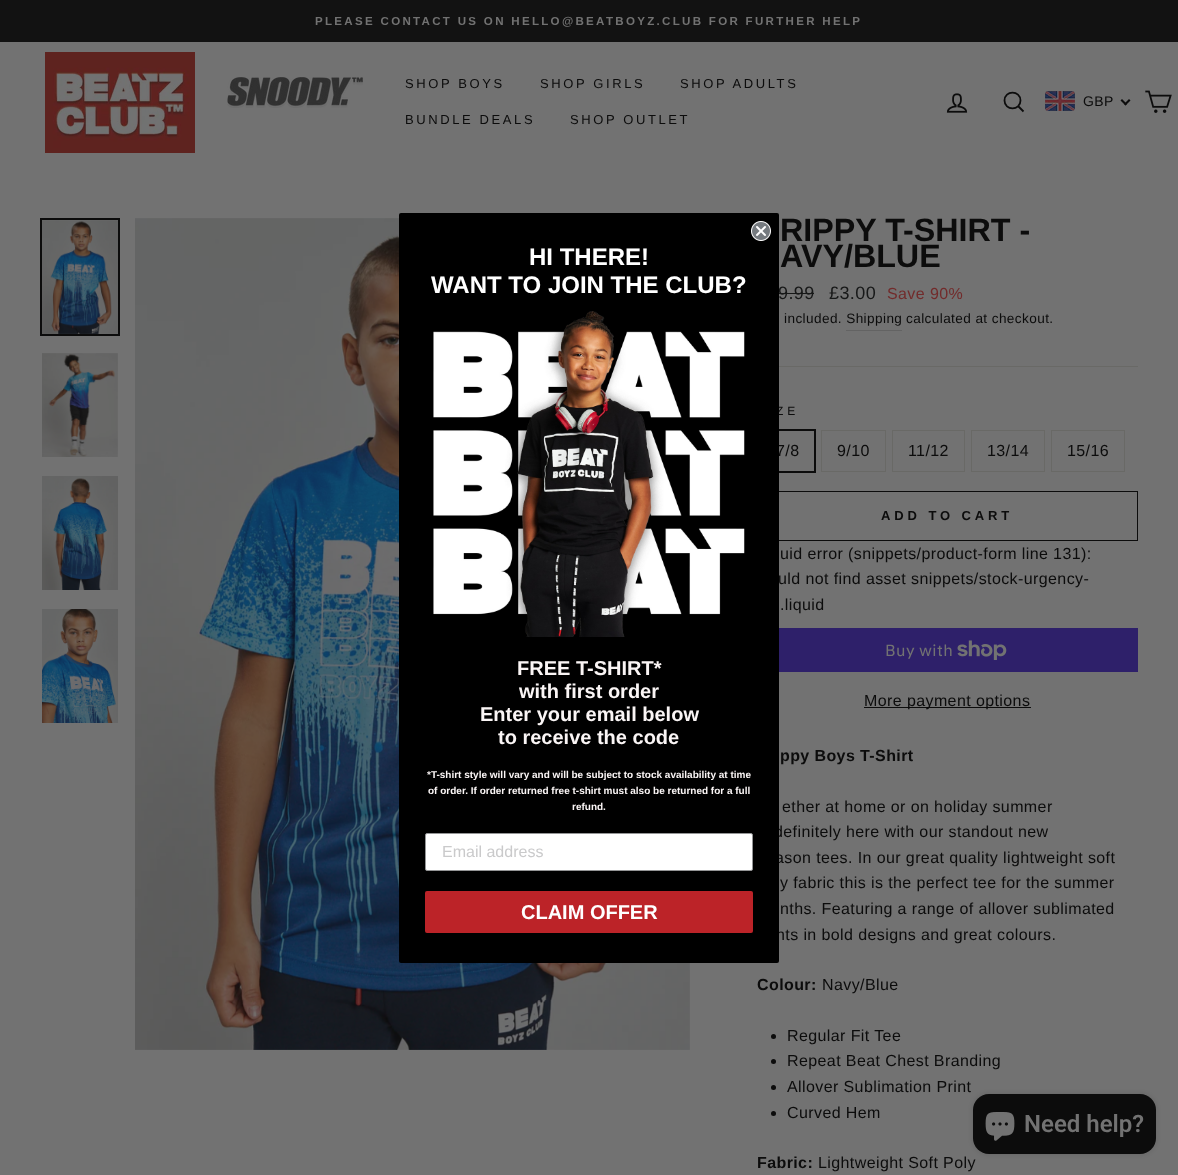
async function draw(canvas) {
  canvas.width = 1178;
  canvas.height = 1175;
  const ctx = canvas.getContext('2d');
  ctx.miterLimit = 4;
  ctx.fontKerning = 'normal';
  function label(s, x, y, font, color) {
    ctx.font = font;
    ctx.fillStyle = color;
    ctx.fillText(s, x, y);
  }
  function rect(x, y, w, h, color) {
    ctx.fillStyle = color;
    ctx.fillRect(x, y, w, h);
  }
  function roundedRect(x, y, w, h, r, color) {
    ctx.fillStyle = color;
    ctx.beginPath();
    ctx.roundRect(x, y, w, h, r);
    ctx.fill();
  }
  async function image(src, x, y, w, h) {
    const img = new Image();
    img.src = src;
    await img.decode();
    ctx.drawImage(img, x, y, w, h);
  }
  let path;

  rect(0, 0, 1178, 1175, '#727272');
  rect(0, 0, 1178, 42, '#121212');
  ctx.letterSpacing = '2.3px';
  label('PLEASE CONTACT US ON HELLO@BEATBOYZ.CLUB FOR FURTHER HELP', 315, 25, 'bold 11.55px Liberation Sans', '#727272');
  await image('assets/img1.png', 45, 52, 150, 101);
  await image('assets/img2.png', 227, 77, 136, 31);
  ctx.letterSpacing = '2.6px';
  label('SHOP BOYS', 405, 88, '13px Liberation Sans', '#0c0c0c');
  label('SHOP GIRLS', 540, 88, '13px Liberation Sans', '#0c0c0c');
  label('SHOP ADULTS', 680, 88, '13px Liberation Sans', '#0c0c0c');
  label('BUNDLE DEALS', 405, 124, '13px Liberation Sans', '#0c0c0c');
  label('SHOP OUTLET', 570, 124, '13px Liberation Sans', '#0c0c0c');
  await image('assets/img3.png', 946, 93, 22, 20);
  path = new Path2D('M1020.5 100.5C1020.5 111 1004.5 111 1004.5 100.5C1004.5 90 1020.5 90 1020.5 100.5ZM1023.5 111.5L1018.5 106.5');
  ctx.strokeStyle = '#0c0c0c';
  ctx.lineWidth = 1.8;
  ctx.stroke(path);
  await image('assets/img4.png', 1045, 91, 30, 20);
  ctx.letterSpacing = '0.4px';
  label('GBP', 1083, 106, '14px Liberation Sans', '#0c0c0c');
  path = new Path2D('M1129 99L1130.5 100.5L1125.5 105.5L1124 104Z');
  ctx.fill(path);
  path = new Path2D('M1122 99L1127 104L1125.5 105.5L1120.5 100.5Z');
  ctx.fill(path);
  await image('assets/img5.png', 1145, 90, 27, 23);
  ctx.lineWidth = 2;
  ctx.strokeRect(41, 219, 78, 116);
  await image('assets/img6.png', 42, 220, 76, 114);
  await image('assets/img7.png', 42, 353, 76, 104);
  await image('assets/img8.png', 42, 476, 76, 114);
  await image('assets/img9.png', 42, 609, 76, 114);
  await image('assets/img10.png', 135, 218, 555, 832);
  ctx.letterSpacing = '0px';
  label('RIPPY T-SHIRT -', 780, 241, 'bold 32.25px Liberation Sans', '#0c0c0c');
  label('AVY/BLUE', 780, 267, 'bold 32.25px Liberation Sans', '#0c0c0c');
  ctx.letterSpacing = '0.4px';
  label('9.99', 778, 299, '18px Liberation Sans', '#171818');
  rect(779, 293, 35, 1, '#171818');
  label('£3.00', 829, 299, '18px Liberation Sans', '#171818');
  label('Save 90%', 887, 299, '16px Liberation Sans', '#722b2b');
  label('included. Shipping', 784, 323, '13.6px Liberation Sans', '#0c0c0c');
  label('calculated at checkout.', 906, 323, '13.6px Liberation Sans', '#0c0c0c');
  rect(846, 330, 56, 1, '#636363');
  rect(779, 366, 359, 1, '#696966');
  ctx.letterSpacing = '4px';
  label('ZE', 776, 415, '12px Liberation Sans', '#0c0c0c');
  ctx.strokeRect(760, 430, 55, 42);
  ctx.letterSpacing = '0.4px';
  label('7/8', 776, 456, '16px Liberation Sans', '#0c0c0c');
  ctx.strokeStyle = '#696966';
  ctx.lineWidth = 1;
  ctx.strokeRect(821.5, 430.5, 64, 41);
  label('9/10', 837, 456, '16px Liberation Sans', '#0c0c0c');
  ctx.strokeRect(892.5, 430.5, 72, 41);
  label('11/12', 908, 456, '16px Liberation Sans', '#0c0c0c');
  ctx.strokeRect(971.5, 430.5, 73, 41);
  label('13/14', 987, 456, '16px Liberation Sans', '#0c0c0c');
  ctx.strokeRect(1051.5, 430.5, 73, 41);
  label('15/16', 1067, 456, '16px Liberation Sans', '#0c0c0c');
  ctx.strokeStyle = '#0c0c0c';
  ctx.strokeRect(757.5, 491.5, 380, 49);
  ctx.letterSpacing = '3.9px';
  label('ADD TO CART', 881, 520, 'bold 13px Liberation Sans', '#0c0c0c');
  ctx.letterSpacing = '0.4px';
  label('uid error (snippets/product-form line 131):', 780, 559, '16px Liberation Sans', '#0c0c0c');
  label('uld not find asset snippets/stock-urgency-', 778, 584, '16px Liberation Sans', '#0c0c0c');
  label('.liquid', 780, 610, '16px Liberation Sans', '#0c0c0c');
  rect(779, 628, 359, 44, '#2e206a');
  label('Buy with', 885, 656, '16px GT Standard', '#727272');
  await image('assets/img11.png', 957, 640, 50, 20);
  rect(864, 707, 167, 1, '#0c0c0c');
  label('More payment options', 864, 706, '16px Liberation Sans', '#0c0c0c');
  label('ppy Boys T-Shirt', 780, 761, 'bold 16px Liberation Sans', '#0c0c0c');
  label('ether at home or on holiday summer', 782, 812, '16px Liberation Sans', '#0c0c0c');
  label('definitely here with our standout new', 774, 837, '16px Liberation Sans', '#0c0c0c');
  label('ason tees. In our great quality lightweight soft', 775, 863, '16px Liberation Sans', '#0c0c0c');
  label('y fabric this is the perfect tee for the summer', 780, 888, '16px Liberation Sans', '#0c0c0c');
  label('nths. Featuring a range of allover sublimated', 780, 914, '16px Liberation Sans', '#0c0c0c');
  label('nts in bold designs and great colours.', 776, 940, '16px Liberation Sans', '#0c0c0c');
  label('Colour:', 757, 990, 'bold 16px Liberation Sans', '#0c0c0c');
  label('Navy/Blue', 822, 990, '16px Liberation Sans', '#0c0c0c');
  ctx.beginPath();
  ctx.arc(773.5, 1036.5, 2.5, 0, 2 * Math.PI);
  ctx.fill();
  label('Regular Fit Tee', 787, 1041, '16px Liberation Sans', '#0c0c0c');
  ctx.beginPath();
  ctx.arc(773.5, 1061.5, 2.5, 0, 2 * Math.PI);
  ctx.fill();
  label('Repeat Beat Chest Branding', 787, 1066, '16px Liberation Sans', '#0c0c0c');
  ctx.beginPath();
  ctx.arc(773.5, 1087.5, 2.5, 0, 2 * Math.PI);
  ctx.fill();
  label('Allover Sublimation Print', 787, 1092, '16px Liberation Sans', '#0c0c0c');
  ctx.beginPath();
  ctx.arc(773.5, 1113.5, 2.5, 0, 2 * Math.PI);
  ctx.fill();
  label('Curved Hem', 787, 1118, '16px Liberation Sans', '#0c0c0c');
  label('Fabric:', 757, 1168, 'bold 16px Liberation Sans', '#0c0c0c');
  label('Lightweight Soft Poly', 818, 1168, '16px Liberation Sans', '#0c0c0c');
  roundedRect(399, 213, 380, 750, 2, '#000');
  await image('assets/img12.png', 751, 221, 20, 20);
  ctx.letterSpacing = '0px';
  label('HI THERE!', 529, 265, 'bold 24px Liberation Sans', '#fff');
  label('WANT TO JOIN THE CLUB?', 431, 293, 'bold 24px Liberation Sans', '#fff');
  await image('assets/img13.png', 433, 311, 312, 326);
  label('FREE T-SHIRT*', 517, 675, 'bold 20px Liberation Sans', '#faf5f5');
  label('with first order', 519, 698, 'bold 20px Liberation Sans', '#faf5f5');
  label('Enter your email below', 480, 721, 'bold 20px Liberation Sans', '#faf5f5');
  label('to receive the code', 498, 744, 'bold 20px Liberation Sans', '#faf5f5');
  label('*T-shirt style will vary and will be subject to stock availability at time', 427, 778, 'bold 10px Liberation Sans', '#faf5f5');
  label('of order. If order returned free t-shirt must also be returned for a full', 428, 794, 'bold 10px Liberation Sans', '#faf5f5');
  label('refund.', 572, 810, 'bold 10px Liberation Sans', '#faf5f5');
  ctx.fillStyle = '#fff';
  ctx.beginPath();
  ctx.roundRect(425.5, 833.5, 327, 37, 1.5);
  ctx.fill();
  ctx.strokeStyle = '#949596';
  ctx.stroke();
  label('Email address', 442, 857, '16px Liberation Sans', '#cacacb');
  roundedRect(425, 891, 328, 42, 2, '#bc2328');
  label('CLAIM OFFER', 521, 919, 'bold 20px Liberation Sans', '#fff');
  ctx.fillStyle = '#0c0c0c26';
  ctx.filter = 'blur(2.5px)';
  ctx.beginPath();
  ctx.roundRect(973, 1094, 183, 60, 16);
  ctx.fill();
  ctx.filter = 'none';
  roundedRect(973, 1094, 183, 60, 16, '#0c0c0c');
  await image('assets/img14.png', 985, 1112, 30, 29);
  label('Need help?', 1024, 1132, '600 24px Roboto', '#727272');
}

draw(document.querySelector('canvas'));
